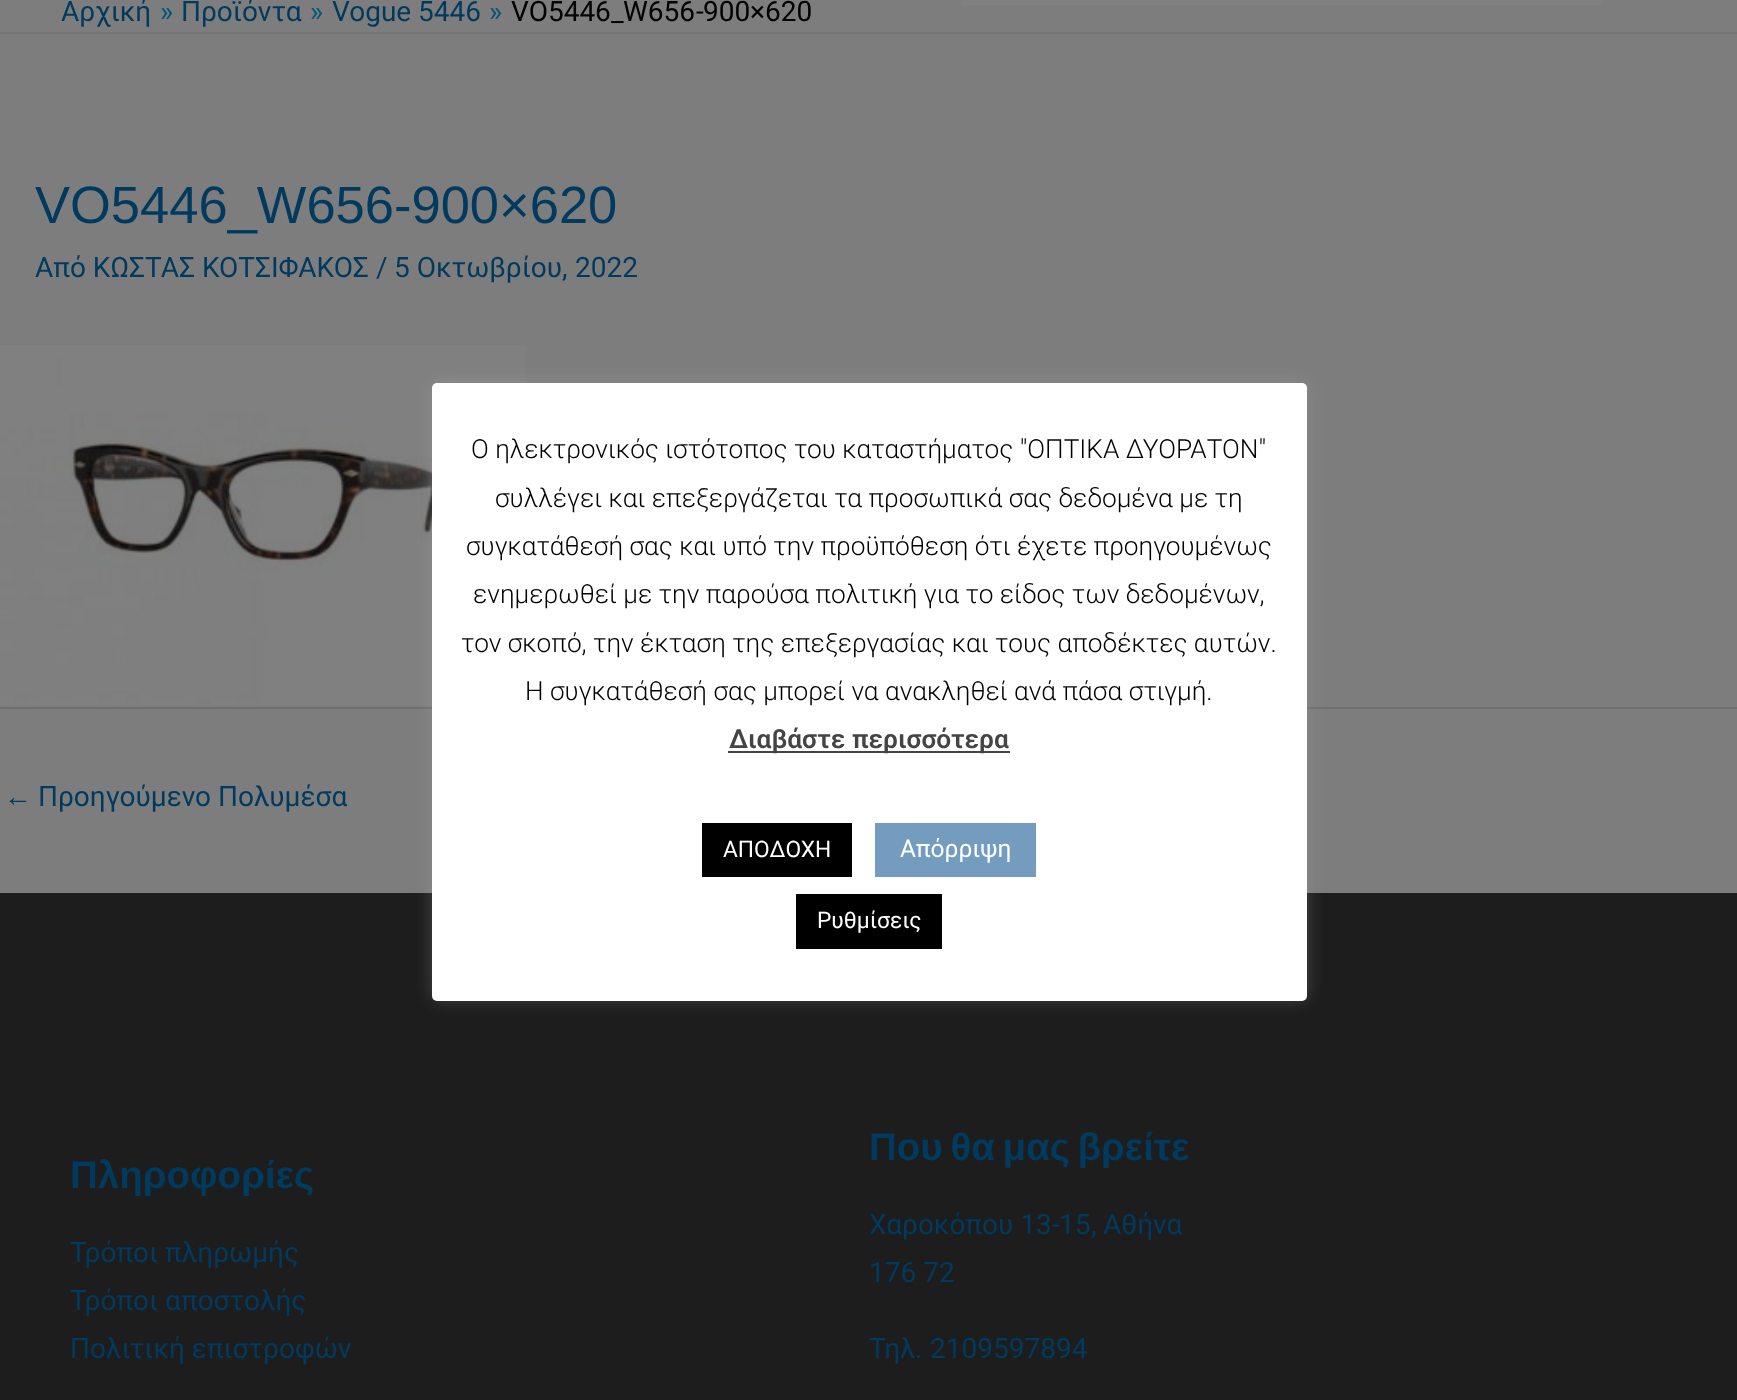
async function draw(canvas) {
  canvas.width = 1737;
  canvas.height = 1400;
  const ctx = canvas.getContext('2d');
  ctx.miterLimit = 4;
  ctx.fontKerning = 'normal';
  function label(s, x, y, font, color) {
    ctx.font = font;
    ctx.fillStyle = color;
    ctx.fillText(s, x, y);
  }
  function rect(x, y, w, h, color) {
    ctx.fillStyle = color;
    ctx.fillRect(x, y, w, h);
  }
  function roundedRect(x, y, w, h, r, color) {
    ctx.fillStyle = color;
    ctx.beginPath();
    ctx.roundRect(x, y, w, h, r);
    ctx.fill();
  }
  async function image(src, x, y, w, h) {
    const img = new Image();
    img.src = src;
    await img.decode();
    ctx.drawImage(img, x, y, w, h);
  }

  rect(0, 0, 1737, 1400, '#7d7d7d');
  rect(0, 32, 1737, 2, '#757575');
  label('Αρχική', 61, 21, '28px Roboto', '#013a5f');
  label('»', 160, 21, '28px "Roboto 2"', '#015778');
  label('Προϊόντα', 181, 21, '28px Roboto', '#013a5f');
  label('»', 310, 21, '28px "Roboto 2"', '#015778');
  label('Vogue 5446', 332, 21, '28px Roboto', '#013a5f');
  label('»', 489, 21, '28px "Roboto 2"', '#015778');
  label('VO5446', 511, 21, '28px Roboto', '#030000');
  label('W656', 623, 21, '28px Roboto', '#030000');
  label('-', 696, 21, '28px "Roboto 2"', '#030000');
  label('900', 703, 21, '28px Roboto', '#030000');
  label('×', 750, 21, '28px "Roboto 2"', '#030000');
  label('620', 765, 21, '28px Roboto', '#030000');
  label('_', 611, 21, '28px "Roboto 2"', '#030000');
  rect(961, 0, 642, 5, '#808080');
  label('VO5446_W656-900×620', 35, 223, '52.5px Liberation Sans', '#013a5f');
  label('Από ΚΩΣΤΑΣ ΚΟΤΣΙΦΑΚΟΣ', 35, 277, '28px Roboto', '#013a5f');
  label('/', 376, 277, '28px "Roboto 2"', '#013a5f');
  label('5 Οκτωβρίου', 394, 277, '28px Roboto', '#013a5f');
  label(',', 562, 277, '28px "Roboto 2"', '#013a5f');
  label('2022', 575, 277, '28px Roboto', '#013a5f');
  await image('assets/img1.png', 0, 345, 525, 361);
  rect(0, 707, 1737, 2, '#6f6f6f');
  label('←', 4, 806, '28px Liberation Sans', '#013a5f');
  label('Προηγούμενο Πολυμέσα', 38, 806, '28px Roboto', '#013a5f');
  rect(0, 893, 1737, 507, '#1d1d1d');
  label('Πληροφορίες', 70, 1188, 'bold 38.5px Liberation Sans', '#013a5f');
  label('Τρόποι πληρωμής', 70, 1262, '28px Roboto', '#013a5f');
  label('Τρόποι αποστολής', 70, 1310, '28px Roboto', '#013a5f');
  label('Πολιτική επιστροφών', 70, 1358, '28px Roboto', '#013a5f');
  ctx.wordSpacing = '-3px';
  label('Που θα μας βρείτε', 869, 1160, 'bold 38.5px Liberation Sans', '#013a5f');
  ctx.wordSpacing = '0px';
  label('Χαροκόπου 13', 869, 1234, '28px Roboto', '#013a5f');
  label('-', 1052, 1234, '28px "Roboto 2"', '#013a5f');
  label('15', 1059, 1234, '28px Roboto', '#013a5f');
  label('Αθήνα', 1103, 1234, '28px Roboto', '#013a5f');
  label(',', 1091, 1234, '28px "Roboto 2"', '#013a5f');
  label('176 72', 869, 1282, '28px Roboto', '#013a5f');
  label('Τηλ', 869, 1358, '28px Roboto', '#013a5f');
  label('.', 915, 1358, '28px "Roboto 2"', '#013a5f');
  label('2109597894', 930, 1358, '28px Roboto', '#013a5f');
  ctx.fillStyle = '#acabab4d';
  ctx.filter = 'blur(9px)';
  ctx.beginPath();
  ctx.roundRect(432, 382, 875, 617, 5);
  ctx.fill();
  ctx.filter = 'none';
  roundedRect(432, 383, 875, 618, 5, '#fff');
  label('Ο ηλεκτρονικός ιστότοπος του καταστήματος "ΟΠΤΙΚΑ ΔΥΟΡΑΤΟΝ"', 471, 458, '300 26.25px Roboto', '#030000');
  label('συλλέγει και επεξεργάζεται τα προσωπικά σας δεδομένα με τη', 495, 507, '300 26.25px Roboto', '#030000');
  label('συγκατάθεσή σας και υπό την προϋπόθεση ότι έχετε προηγουμένως', 466, 555, '300 26.25px Roboto', '#030000');
  label('ενημερωθεί με την παρούσα πολιτική για το είδος των δεδομένων,', 473, 603, '300 26.25px Roboto', '#030000');
  label('τον σκοπό, την έκταση της επεξεργασίας και τους αποδέκτες αυτών.', 461, 652, '300 26.25px Roboto', '#030000');
  label('Η συγκατάθεσή σας μπορεί να ανακληθεί ανά πάσα στιγμή.', 525, 700, '300 26.25px Roboto', '#030000');
  rect(728, 751, 282, 2, '#444');
  label('Διαβάστε περισσότερα', 729, 748, '600 26.25px Roboto', '#444');
  rect(702, 823, 150, 54, '#000');
  label('ΑΠΟΔΟΧΗ', 723, 857, '22.75px Roboto', '#fff');
  rect(875, 823, 161, 54, '#749cbf');
  label('Απόρριψη', 900, 857, '24.5px Roboto', '#fff');
  rect(796, 894, 146, 55, '#000');
  label('Ρυθμίσεις', 817, 928, '22.75px Roboto', '#fff');
}

draw(document.querySelector('canvas'));
